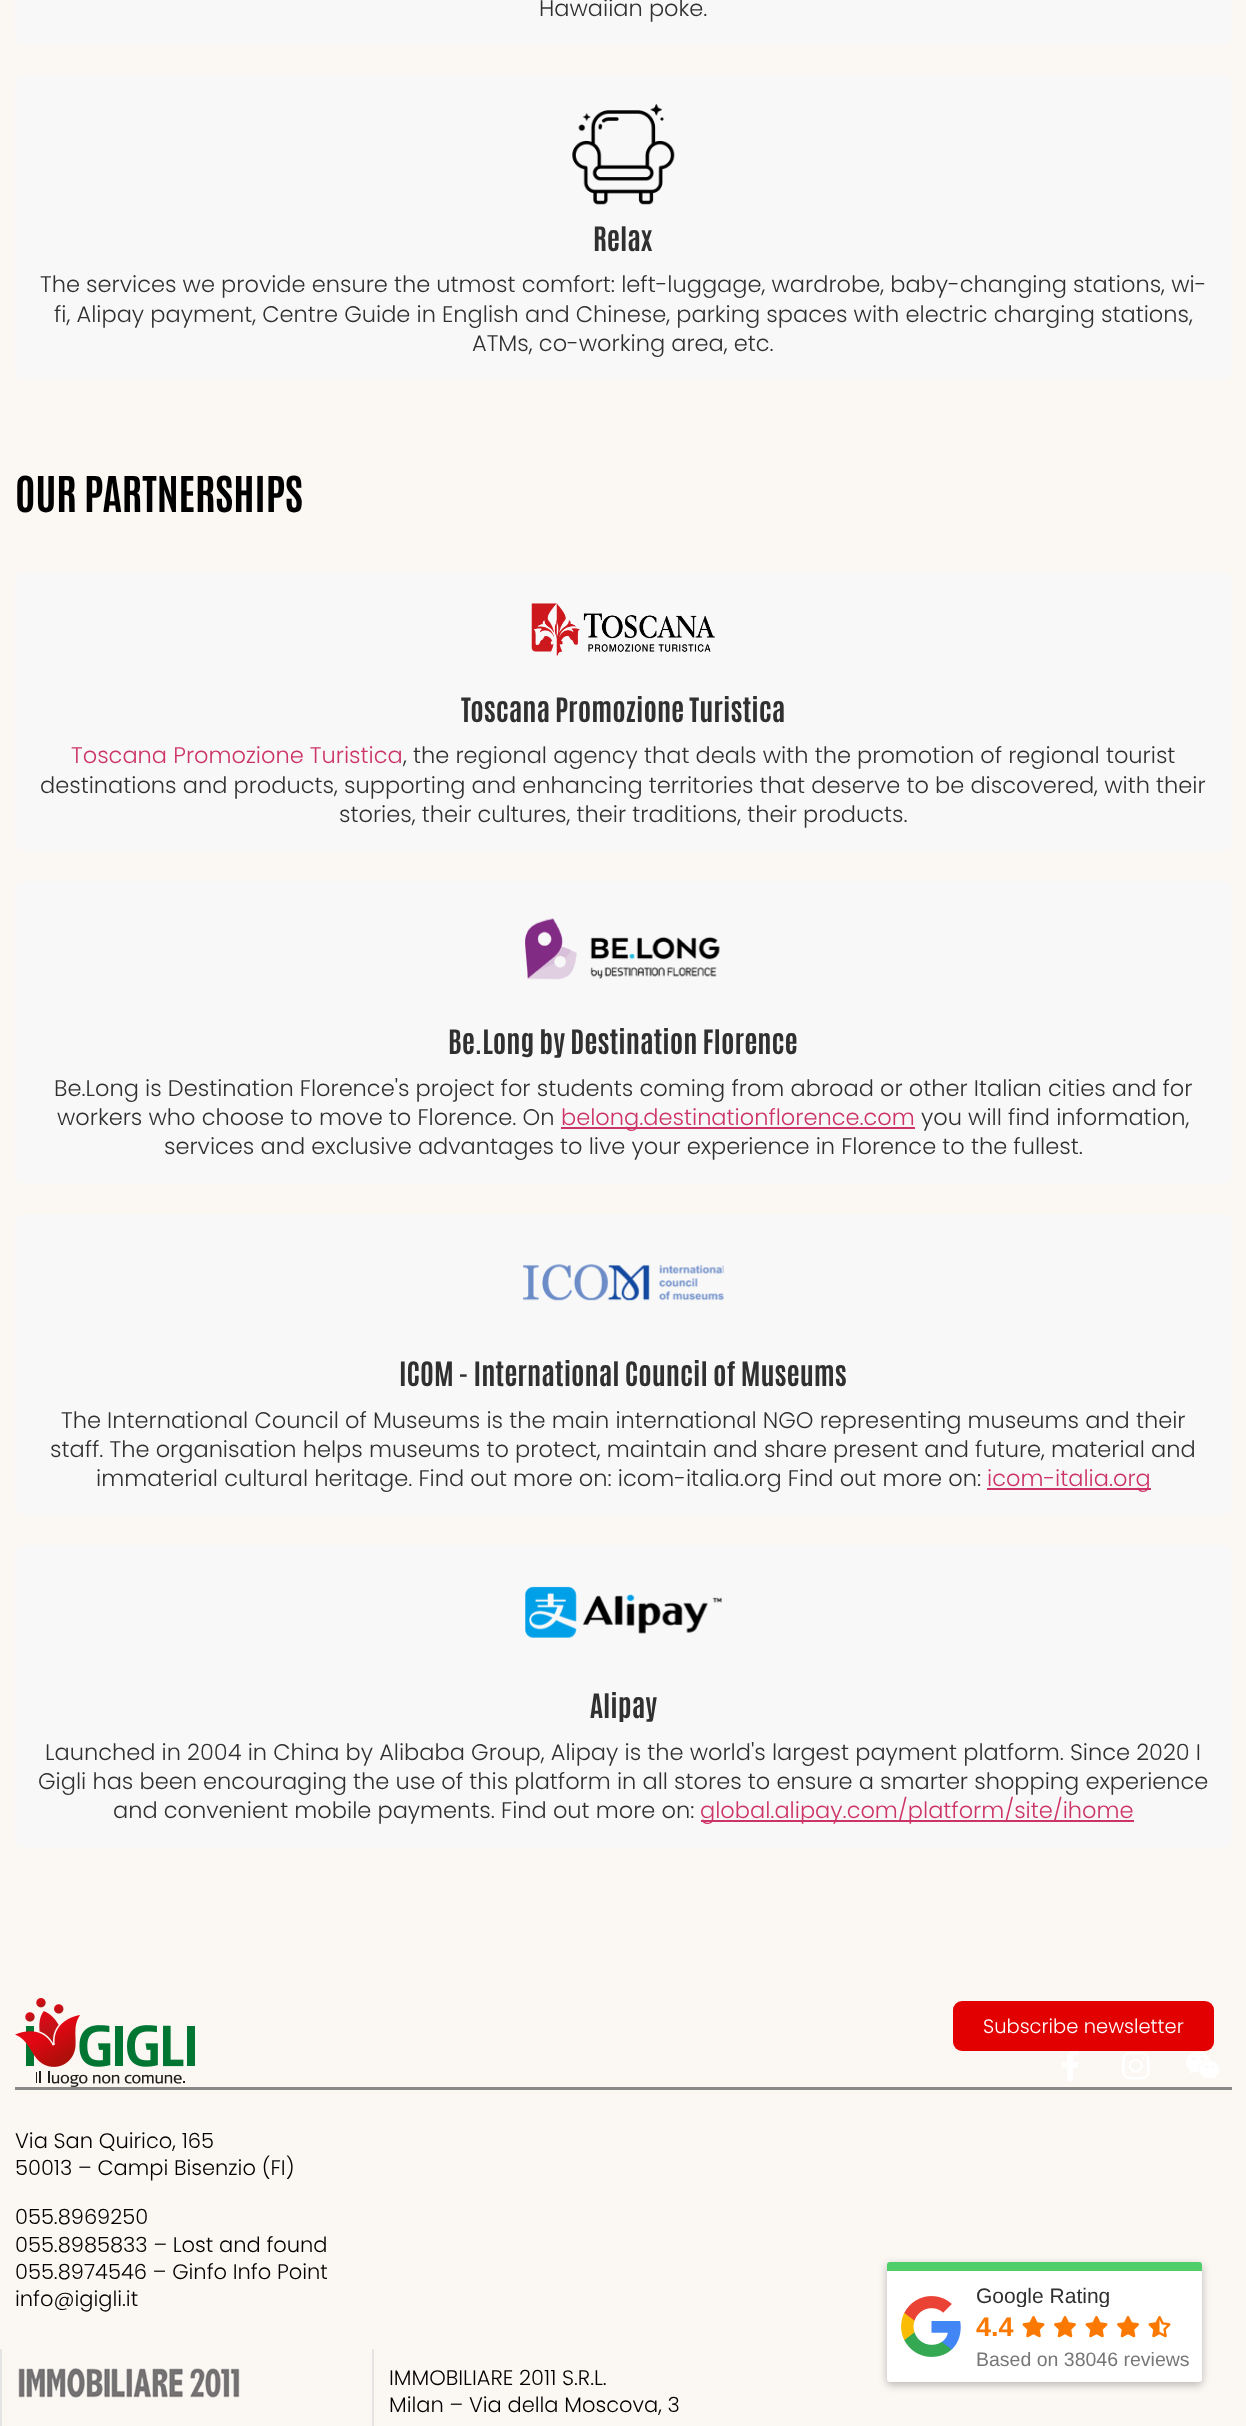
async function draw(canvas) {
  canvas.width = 1246;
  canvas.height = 2426;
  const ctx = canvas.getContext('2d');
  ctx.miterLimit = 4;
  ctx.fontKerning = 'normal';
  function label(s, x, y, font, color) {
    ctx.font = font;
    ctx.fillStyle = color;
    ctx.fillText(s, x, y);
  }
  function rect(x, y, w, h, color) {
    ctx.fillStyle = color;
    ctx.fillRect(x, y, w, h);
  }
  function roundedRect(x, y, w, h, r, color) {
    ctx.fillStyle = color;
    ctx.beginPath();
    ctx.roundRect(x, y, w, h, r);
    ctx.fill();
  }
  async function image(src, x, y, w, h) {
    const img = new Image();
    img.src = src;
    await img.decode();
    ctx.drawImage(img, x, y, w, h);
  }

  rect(0, 0, 1246, 2426, '#fbf7f3');
  roundedRect(15, -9, 1217, 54, 9, '#f8f8f8');
  label('Hawaiian poke.', 539, 16, '300 22.5px Poppins', '#303030');
  roundedRect(15, 75, 1217, 305, 9, '#f8f8f8');
  await image('assets/img1.png', 572, 104, 103, 101);
  label('Relax', 593, 251, 'bold 28.5px Antonio', '#303030');
  label('The services we provide ensure the utmost comfort: left-luggage, wardrobe, baby-changing stations, wi-', 40, 292, '300 22.5px Poppins', '#303030');
  label('fi, Alipay payment, Centre Guide in English and Chinese, parking spaces with electric charging stations,', 54, 322, '300 22.5px Poppins', '#303030');
  label('ATMs, co-working area, etc.', 472, 351, '300 22.5px Poppins', '#303030');
  label('OUR PARTNERSHIPS', 15, 512, 'bold 42px Antonio', '#000');
  roundedRect(15, 572, 1217, 279, 9, '#f8f8f8');
  await image('assets/img2.png', 531, 603, 184, 53);
  label('Toscana Promozione Turistica', 461, 722, 'bold 28.5px Antonio', '#303030');
  label('Toscana Promozione Turistica', 71, 763, '300 22.5px Poppins', '#c36');
  label(', the regional agency that deals with the promotion of regional tourist', 403, 763, '300 22.5px Poppins', '#303030');
  label('destinations and products, supporting and enhancing territories that deserve to be discovered, with their', 40, 793, '300 22.5px Poppins', '#303030');
  label('stories, their cultures, their traditions, their products.', 339, 822, '300 22.5px Poppins', '#303030');
  roundedRect(15, 881, 1217, 303, 9, '#f8f8f8');
  await image('assets/img3.png', 525, 918, 195, 62);
  label('Be.Long by Destination Florence', 448, 1054, 'bold 28.5px Antonio', '#303030');
  label('Be.Long is Destination Florence\'s project for students coming from abroad or other Italian cities and for', 54, 1096, '300 22.5px Poppins', '#303030');
  label('workers who choose to move to Florence. On', 57, 1125, '300 22.5px Poppins', '#303030');
  rect(561, 1127, 354, 2, '#c36');
  label('belong.destinationflorence.com', 561, 1125, '300 22.5px Poppins', '#c36');
  label('you will find information,', 921, 1125, '300 22.5px Poppins', '#303030');
  label('services and exclusive advantages to live your experience in Florence to the fullest.', 164, 1154, '300 22.5px Poppins', '#303030');
  roundedRect(15, 1214, 1217, 301, 9, '#f8f8f8');
  await image('assets/img4.png', 523, 1264, 201, 37);
  label('ICOM - International Council of Museums', 399, 1386, 'bold 28.5px Antonio', '#303030');
  label('The International Council of Museums is the main international NGO representing museums and their', 61, 1428, '300 22.5px Poppins', '#303030');
  label('staff. The organisation helps museums to protect, maintain and share present and future, material and', 50, 1457, '300 22.5px Poppins', '#303030');
  label('immaterial cultural heritage. Find out more on: icom-italia.org Find out more on:', 96, 1486, '300 22.5px Poppins', '#303030');
  rect(987, 1488, 164, 2, '#c36');
  label('icom-italia.org', 987, 1486, '300 22.5px Poppins', '#c36');
  roundedRect(15, 1545, 1217, 303, 9, '#f8f8f8');
  await image('assets/img5.png', 525, 1586, 197, 52);
  label('Alipay', 590, 1718, 'bold 28.5px Antonio', '#303030');
  label('Launched in 2004 in China by Alibaba Group, Alipay is the world\'s largest payment platform. Since 2020 I', 45, 1760, '300 22.5px Poppins', '#303030');
  label('Gigli has been encouraging the use of this platform in all stores to ensure a smarter shopping experience', 38, 1789, '300 22.5px Poppins', '#303030');
  label('and convenient mobile payments. Find out more on:', 113, 1818, '300 22.5px Poppins', '#303030');
  rect(701, 1820, 433, 2, '#c36');
  label('global.alipay.com/platform/site/ihome', 700, 1818, '300 22.5px Poppins', '#c36');
  rect(15, 2087, 1217, 3, '#898989');
  await image('assets/img6.png', 15, 1998, 180, 89);
  roundedRect(953, 2001, 261, 50, 9, '#e30000');
  label('Subscribe newsletter', 983, 2033, '300 19.5px Poppins', '#fff');
  await image('assets/img7.png', 1062, 2051, 17, 31);
  await image('assets/img8.png', 1122, 2052, 28, 28);
  await image('assets/img9.png', 1186, 2052, 34, 27);
  label('Via San Quirico, 165', 15, 2148, '300 21px Poppins', '#000');
  label('50013 – Campi Bisenzio (FI)', 15, 2175, '300 21px Poppins', '#000');
  label('055.8969250', 15, 2224, '300 21px Poppins', '#000');
  label('055.8985833 – Lost and found', 15, 2252, '300 21px Poppins', '#000');
  label('055.8974546 – Ginfo Info Point', 15, 2279, '300 21px Poppins', '#000');
  label('info@igigli.it', 15, 2306, '300 21px Poppins', '#000');
  rect(372, 2349, 2, 77, '#e4e4e4');
  rect(0, 2349, 2, 77, '#e4e4e4');
  await image('assets/img10.png', 18, 2368, 222, 30);
  label('IMMOBILIARE 2011 S.R.L.', 389, 2385, '300 21px Poppins', '#000');
  label('Milan – Via della Moscova, 3', 389, 2412, '300 21px Poppins', '#000');
  ctx.fillStyle = '#00000042';
  ctx.filter = 'blur(4px)';
  ctx.beginPath();
  ctx.roundRect(887, 2265, 315, 120, 3);
  ctx.fill();
  ctx.filter = 'none';
  ctx.fillStyle = '#4fce6a';
  ctx.beginPath();
  ctx.roundRect(887, 2262, 315, 9, [3, 3, 0, 0]);
  ctx.fill();
  ctx.fillStyle = '#fff';
  ctx.beginPath();
  ctx.roundRect(887, 2271, 315, 111, [0, 0, 3, 3]);
  ctx.fill();
  await image('assets/img11.png', 901, 2296, 60, 61);
  ctx.save();
  ctx.beginPath();
  ctx.rect(977, 2283, 213, 24);
  ctx.clip();
  label('Google Rating', 976, 2303, '21px Liberation Sans', '#303030');
  ctx.restore();
  label('4.4', 976, 2336, 'bold 27px Liberation Sans', '#fb7900');
  await image('assets/img12.png', 1022, 2316, 23, 22);
  await image('assets/img13.png', 1054, 2316, 22, 22);
  await image('assets/img12.png', 1085, 2316, 23, 22);
  await image('assets/img13.png', 1117, 2316, 22, 22);
  await image('assets/img14.png', 1148, 2316, 23, 22);
  label('Based on 38046 reviews', 976, 2366, '19.5px Liberation Sans', '#777');
}

draw(document.querySelector('canvas'));
